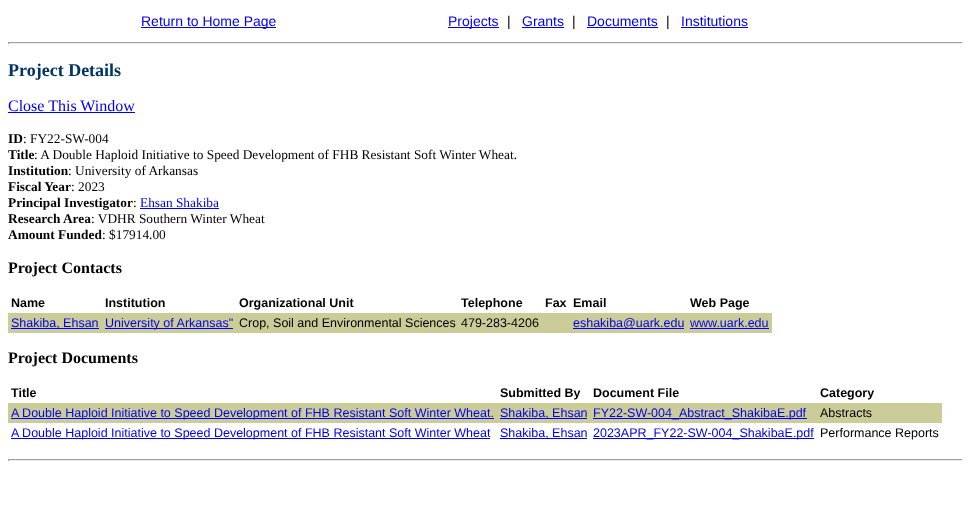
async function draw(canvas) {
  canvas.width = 971;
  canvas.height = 514;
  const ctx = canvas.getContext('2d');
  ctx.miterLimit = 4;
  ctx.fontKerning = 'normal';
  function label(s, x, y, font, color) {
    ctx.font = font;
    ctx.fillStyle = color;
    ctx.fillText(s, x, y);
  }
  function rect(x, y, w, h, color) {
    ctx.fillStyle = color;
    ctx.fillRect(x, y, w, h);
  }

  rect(0, 0, 971, 514, '#fff');
  rect(141, 27, 135, 1, '#00e');
  label('Return to Home Page', 141, 26, '14px Liberation Sans', '#00e');
  rect(448, 27, 51, 1, '#00e');
  label('Projects', 448, 26, '14px Liberation Sans', '#00e');
  label('|', 507, 26, '14px Liberation Sans', '#000');
  label('Grants', 522, 26, '14px Liberation Sans', '#00e');
  rect(522, 27, 42, 1, '#00e');
  label('|', 572, 26, '14px Liberation Sans', '#000');
  label('Documents', 587, 26, '14px Liberation Sans', '#00e');
  rect(587, 27, 71, 1, '#00e');
  label('|', 666, 26, '14px Liberation Sans', '#000');
  label('Institutions', 681, 26, '14px Liberation Sans', '#00e');
  rect(681, 27, 67, 1, '#00e');
  rect(8, 42, 955, 1, '#9f9f9f');
  rect(962, 42, 1, 2, '#eee');
  rect(8, 43, 955, 1, '#eee');
  rect(8, 42, 1, 2, '#9f9f9f');
  label('Project Details', 8, 76, 'bold 18px Liberation Serif', '#036');
  label('Close This Window', 8, 111, '16px Liberation Serif', '#00e');
  rect(8, 112, 127, 1, '#00e');
  label('ID', 8, 143, 'bold 13.35px Liberation Serif', '#000');
  label(': FY22-SW-004', 23, 143, '13.35px Liberation Serif', '#000');
  label('Title', 8, 159, 'bold 13.35px Liberation Serif', '#000');
  label(': A Double Haploid Initiative to Speed Development of FHB Resistant Soft Winter Wheat.', 34, 159, '13.35px Liberation Serif', '#000');
  label('Institution', 8, 175, 'bold 13.35px Liberation Serif', '#000');
  label(': University of Arkansas', 68, 175, '13.35px Liberation Serif', '#000');
  label('Fiscal Year', 8, 191, 'bold 13.35px Liberation Serif', '#000');
  label(': 2023', 71, 191, '13.35px Liberation Serif', '#000');
  label('Principal Investigator', 8, 207, 'bold 13.35px Liberation Serif', '#000');
  label(':', 133, 207, '13.35px Liberation Serif', '#000');
  label('Ehsan Shakiba', 140, 207, '13.35px Liberation Serif', '#00e');
  rect(140, 208, 79, 1, '#00e');
  label('Research Area', 8, 223, 'bold 13.35px Liberation Serif', '#000');
  label(': VDHR Southern Winter Wheat', 91, 223, '13.35px Liberation Serif', '#000');
  label('Amount Funded', 8, 239, 'bold 13.35px Liberation Serif', '#000');
  label(': $17914.00', 102, 239, '13.35px Liberation Serif', '#000');
  label('Project Contacts', 8, 273, 'bold 16px Liberation Serif', '#000');
  label('Name', 11, 307, 'bold 12.5px Liberation Sans', '#000');
  label('Institution', 105, 307, 'bold 12.5px Liberation Sans', '#000');
  label('Organizational Unit', 239, 307, 'bold 12.5px Liberation Sans', '#000');
  label('Telephone', 461, 307, 'bold 12.5px Liberation Sans', '#000');
  label('Fax', 545, 307, 'bold 12.5px Liberation Sans', '#000');
  label('Email', 573, 307, 'bold 12.5px Liberation Sans', '#000');
  label('Web Page', 690, 307, 'bold 12.5px Liberation Sans', '#000');
  rect(8, 313, 764, 20, '#cc9');
  rect(11, 328, 88, 1, '#00e');
  label('Shakiba, Ehsan', 11, 327, '12.5px Liberation Sans', '#00e');
  rect(105, 328, 128, 1, '#00e');
  label('University of Arkansas"', 105, 327, '12.5px Liberation Sans', '#00e');
  label('Crop, Soil and Environmental Sciences', 239, 327, '12.5px Liberation Sans', '#000');
  label('479-283-4206', 461, 327, '12.5px Liberation Sans', '#000');
  rect(573, 328, 111, 1, '#00e');
  label('eshakiba@uark.edu', 573, 327, '12.5px Liberation Sans', '#00e');
  label('www.uark.edu', 690, 327, '12.5px Liberation Sans', '#00e');
  rect(690, 328, 79, 1, '#00e');
  label('Project Documents', 8, 363, 'bold 16px Liberation Serif', '#000');
  label('Title', 11, 397, 'bold 12.5px Liberation Sans', '#000');
  label('Submitted By', 500, 397, 'bold 12.5px Liberation Sans', '#000');
  label('Document File', 593, 397, 'bold 12.5px Liberation Sans', '#000');
  label('Category', 820, 397, 'bold 12.5px Liberation Sans', '#000');
  rect(8, 403, 934, 20, '#cc9');
  rect(11, 418, 483, 1, '#00e');
  label('A Double Haploid Initiative to Speed Development of FHB Resistant Soft Winter Wheat.', 11, 417, '12.5px Liberation Sans', '#00e');
  rect(500, 418, 87, 1, '#00e');
  label('Shakiba, Ehsan', 500, 417, '12.5px Liberation Sans', '#00e');
  rect(593, 418, 214, 1, '#00e');
  label('FY22-SW-004_Abstract_ShakibaE.pdf', 593, 417, '12.5px Liberation Sans', '#00e');
  label('Abstracts', 820, 417, '12.5px Liberation Sans', '#000');
  rect(11, 438, 479, 1, '#00e');
  label('A Double Haploid Initiative to Speed Development of FHB Resistant Soft Winter Wheat', 11, 437, '12.5px Liberation Sans', '#00e');
  rect(500, 438, 87, 1, '#00e');
  label('Shakiba, Ehsan', 500, 437, '12.5px Liberation Sans', '#00e');
  rect(593, 438, 221, 1, '#00e');
  label('2023APR_FY22-SW-004_ShakibaE.pdf', 593, 437, '12.5px Liberation Sans', '#00e');
  label('Performance Reports', 820, 437, '12.5px Liberation Sans', '#000');
  rect(8, 459, 955, 1, '#9f9f9f');
  rect(962, 459, 1, 2, '#eee');
  rect(8, 460, 955, 1, '#eee');
  rect(8, 459, 1, 2, '#9f9f9f');
}

draw(document.querySelector('canvas'));
